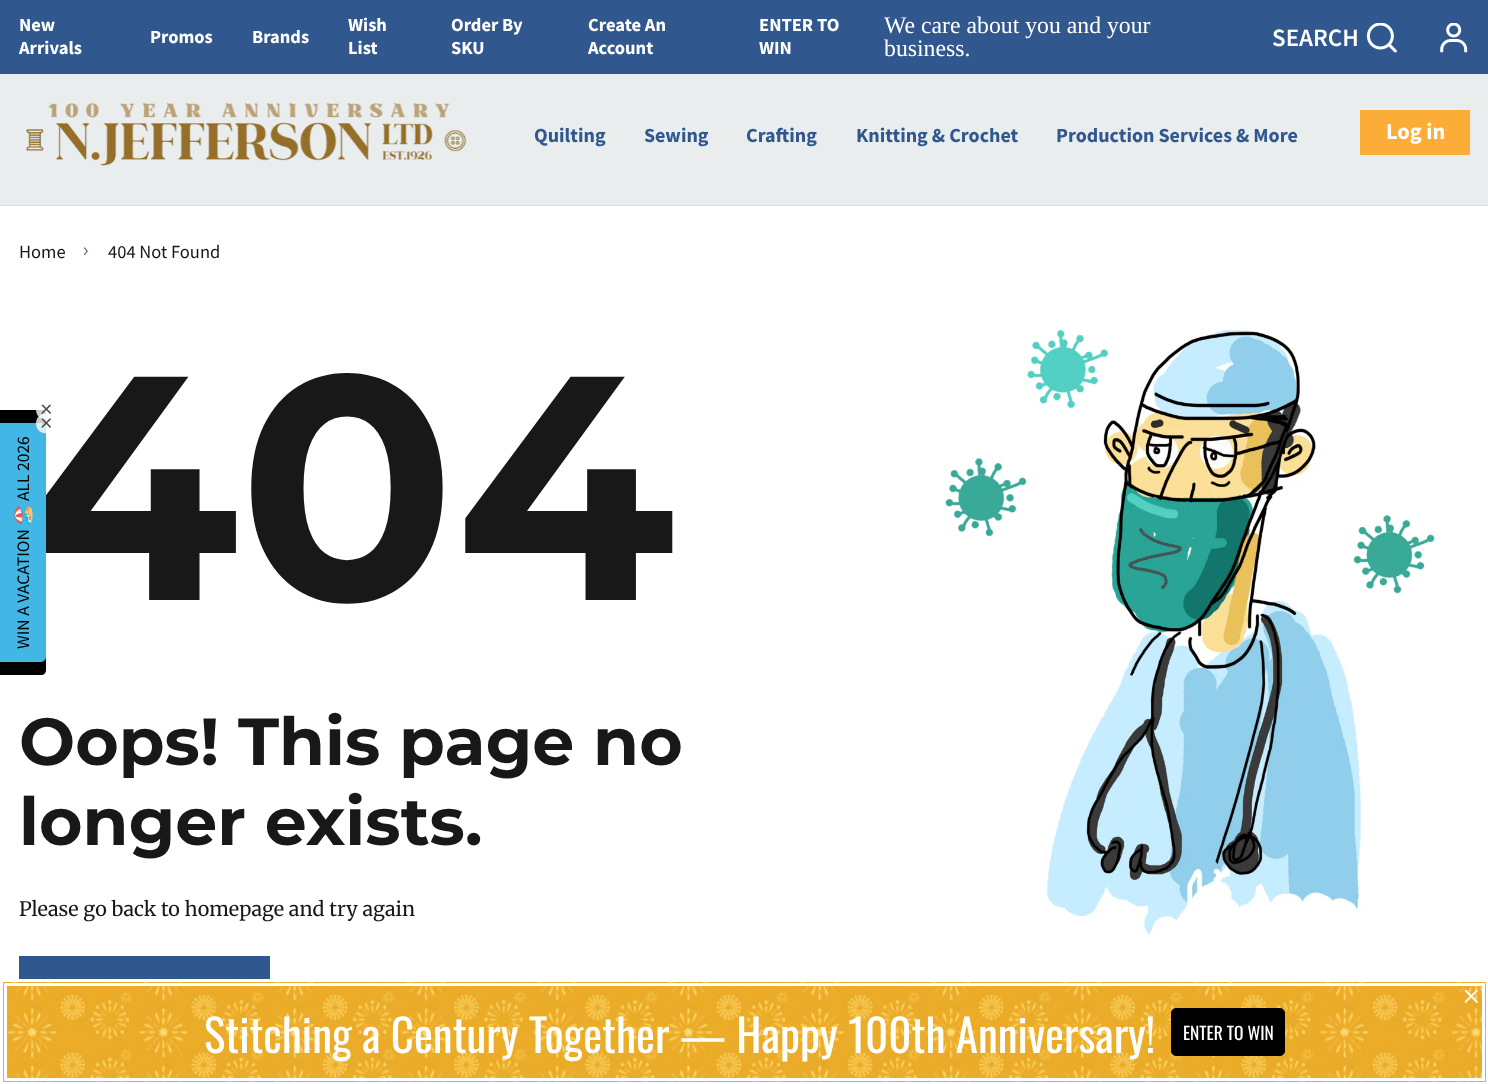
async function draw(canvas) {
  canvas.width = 1488;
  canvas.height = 1084;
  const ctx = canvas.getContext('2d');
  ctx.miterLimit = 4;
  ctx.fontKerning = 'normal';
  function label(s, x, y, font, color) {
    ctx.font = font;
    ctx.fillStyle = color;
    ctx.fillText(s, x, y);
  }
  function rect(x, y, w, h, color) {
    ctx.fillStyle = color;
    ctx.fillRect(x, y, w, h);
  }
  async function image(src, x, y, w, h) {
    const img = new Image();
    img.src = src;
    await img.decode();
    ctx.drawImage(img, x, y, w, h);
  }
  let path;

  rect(0, 0, 1488, 1084, '#fff');
  rect(0, 0, 1488, 74, '#31588e');
  label('New', 19, 31, 'bold 18.5px Source Sans Pro', '#fff');
  label('Arrivals', 19, 54, 'bold 18.5px Source Sans Pro', '#fff');
  label('Promos', 150, 43, 'bold 18.5px Source Sans Pro', '#fff');
  label('Brands', 252, 43, 'bold 18.5px Source Sans Pro', '#fff');
  label('Wish', 348, 31, 'bold 18.5px Source Sans Pro', '#fff');
  label('List', 348, 54, 'bold 18.5px Source Sans Pro', '#fff');
  label('Order By', 451, 31, 'bold 18.5px Source Sans Pro', '#fff');
  label('SKU', 451, 54, 'bold 18.5px Source Sans Pro', '#fff');
  label('Create An', 588, 31, 'bold 18.5px Source Sans Pro', '#fff');
  label('Account', 588, 54, 'bold 18.5px Source Sans Pro', '#fff');
  label('ENTER TO', 759, 31, 'bold 18.5px Source Sans Pro', '#fff');
  label('WIN', 759, 54, 'bold 18.5px Source Sans Pro', '#fff');
  label('We care about you and your', 884, 33, '23.75px Liberation Serif', '#fff');
  label('business.', 884, 56, '23.75px Liberation Serif', '#fff');
  label('SEARCH', 1272, 46, '600 25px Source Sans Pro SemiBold', '#fff');
  await image('assets/img1.png', 1366, 23, 31, 30);
  await image('assets/img2.png', 1440, 23, 28, 30);
  rect(0, 74, 1488, 131, '#e9eded');
  await image('assets/img3.png', 26, 102, 441, 64);
  label('Quilting', 534, 142, 'bold 20px Source Sans Pro', '#31588e');
  label('Sewing', 644, 142, 'bold 20px Source Sans Pro', '#31588e');
  label('Crafting', 746, 142, 'bold 20px Source Sans Pro', '#31588e');
  label('Knitting & Crochet', 856, 142, 'bold 20px Source Sans Pro', '#31588e');
  label('Production Services & More', 1056, 142, 'bold 20px Source Sans Pro', '#31588e');
  rect(1360, 110, 110, 45, '#fcad37');
  label('Log in', 1386, 139, 'bold 22.5px Source Sans Pro', '#fff');
  rect(0, 205, 1488, 1, '#dbe0eb');
  label('Home', 19, 258, '18.5px Source Sans Pro', '#181818');
  await image('assets/img4.png', 84, 247, 4, 9);
  label('404 Not Found', 108, 258, '18.5px Source Sans Pro', '#181818');
  label('404', 19, 600, 'bold 319px Montserrat', '#181818');
  label('Oops! This page no', 19, 765, 'bold 66.5px Montserrat', '#181818');
  label('longer exists.', 19, 845, 'bold 66.5px Montserrat', '#181818');
  label('Please go back to homepage and try again', 19, 916, '19.8px Merriweather', '#181818');
  rect(19, 956, 251, 23, '#31588e');
  await image('assets/img5.png', 944, 328, 493, 607);
  ctx.fillStyle = '#000';
  path = new Path2D('M0 675V410H41C44 410 46 412 46 415V670C46 673 44 675 41 675Z');
  ctx.fill(path);
  ctx.fillStyle = '#ffffffcc';
  path = new Path2D('M36 409.5C36 396.5 56 396.5 56 409.5C56 423 36 423 36 409.5Z');
  ctx.fill(path);
  await image('assets/img6.png', 41, 404, 10, 10);
  ctx.fillStyle = '#42b6e5';
  path = new Path2D('M0 662V423H41C44 423 46 426 46 428V657C46 659 44 662 41 662Z');
  ctx.fill(path);
  ctx.fillStyle = '#ffffffcc';
  path = new Path2D('M36 423.5C36 410 56 410 56 423.5C56 436.5 36 436.5 36 423.5Z');
  ctx.fill(path);
  await image('assets/img7.png', 41, 418, 10, 10);
  ctx.font = '17.5px Source Sans Pro';
  ctx.fillStyle = '#000';
  ctx.save();
  ctx.translate(29, 501);
  ctx.rotate(-90 * Math.PI / 180);
  ctx.fillText('ALL 2026', 0, 0);
  ctx.restore();
  ctx.font = '17.5px Noto Color Emoji';
  ctx.save();
  ctx.translate(29, 526);
  ctx.rotate(-90 * Math.PI / 180);
  ctx.fillText('🏖️', 0, 0);
  ctx.restore();
  ctx.font = '17.5px Source Sans Pro';
  ctx.save();
  ctx.translate(29, 649);
  ctx.rotate(-90 * Math.PI / 180);
  ctx.fillText('WIN A VACATION', 0, 0);
  ctx.restore();
  await image('assets/img8.png', 0, 979, 1486, 103);
  ctx.beginPath();
  ctx.rect(1.5, 980.5, 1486, 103);
  ctx.strokeStyle = '#fff';
  ctx.lineWidth = 3;
  ctx.stroke();
  ctx.strokeRect(5.5, 984.5, 1478, 95);
  await image('assets/img9.png', 1464, 989, 14, 14);
  label('Stitching a Century Together — Happy 100th Anniversary!', 204, 1053, '45px Oswald', '#fff');
  ctx.fillStyle = '#000';
  ctx.beginPath();
  ctx.roundRect(1171.5, 1008.5, 113, 47, 4.5);
  ctx.fill();
  ctx.strokeStyle = '#000';
  ctx.lineWidth = 1;
  ctx.stroke();
  label('ENTER TO WIN', 1183, 1040, '17.5px Oswald', '#fff');
}

draw(document.querySelector('canvas'));
